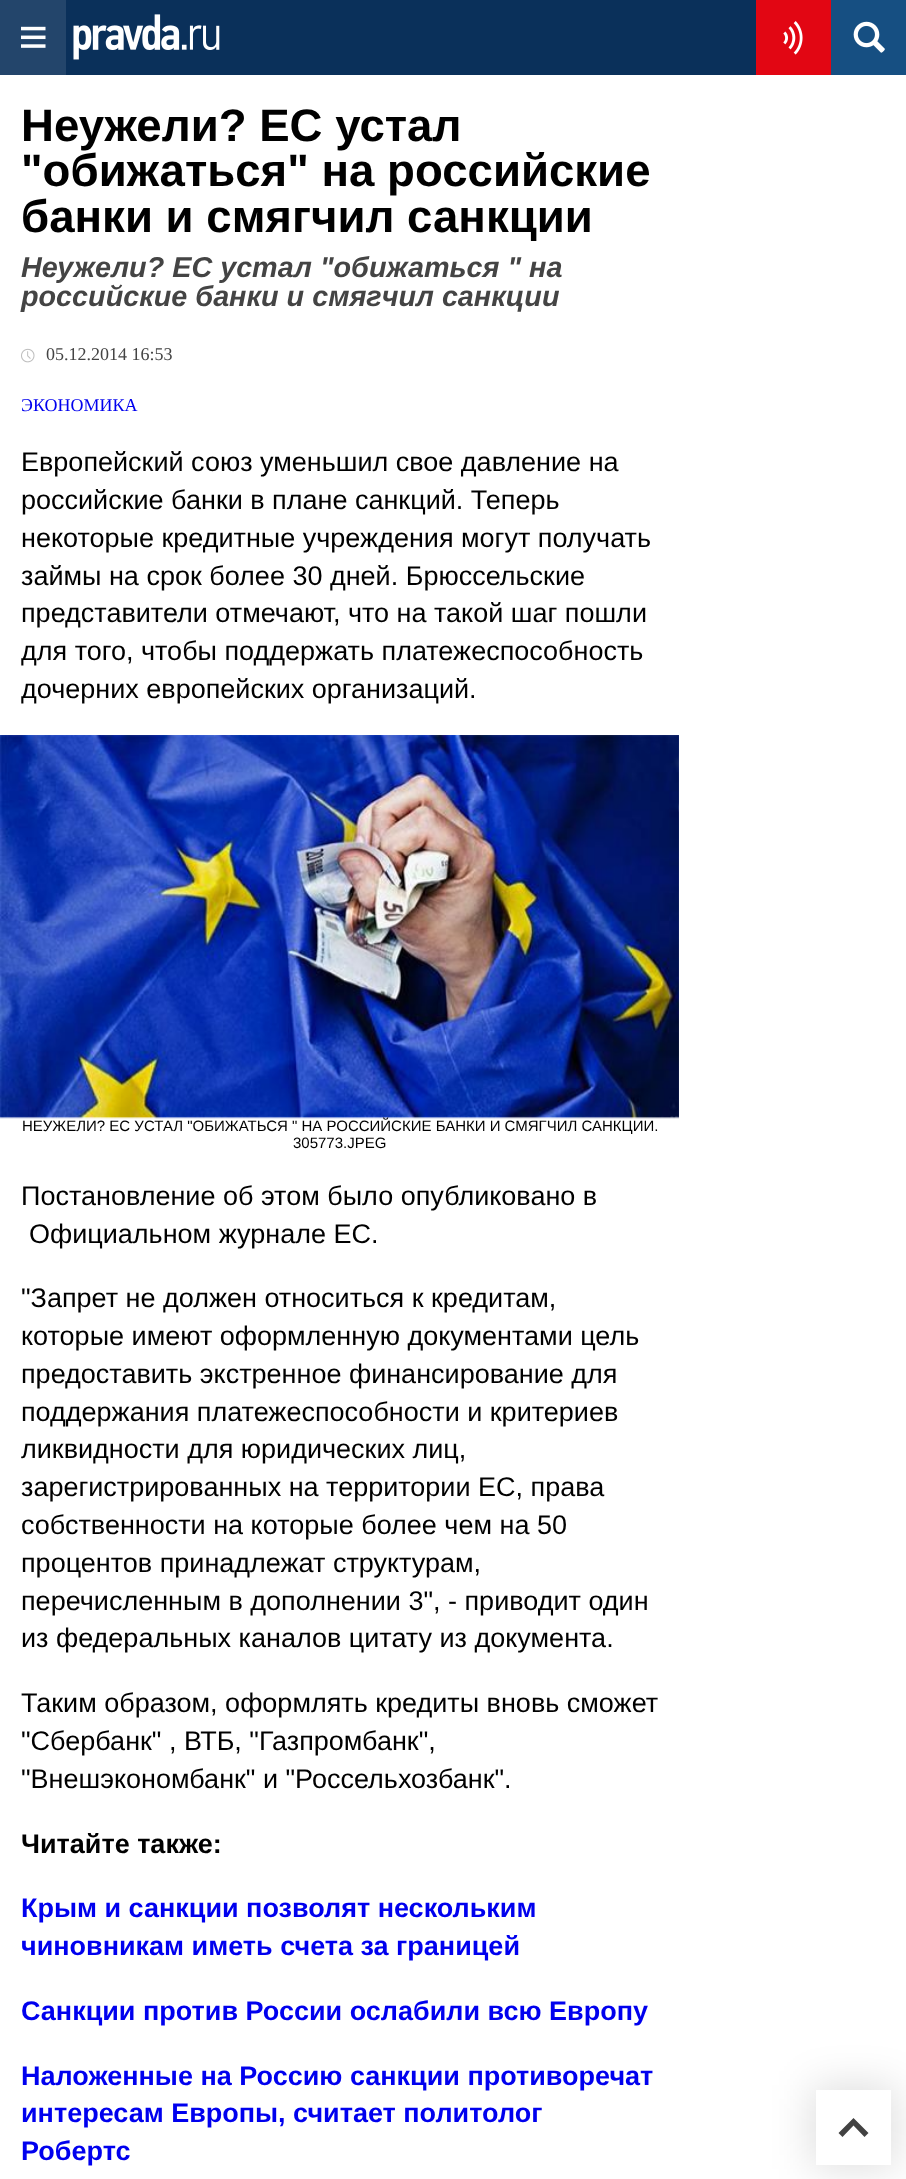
async function draw(canvas) {
  canvas.width = 906;
  canvas.height = 2179;
  const ctx = canvas.getContext('2d');
  ctx.miterLimit = 4;
  ctx.fontKerning = 'normal';
  function label(s, x, y, font, color) {
    ctx.font = font;
    ctx.fillStyle = color;
    ctx.fillText(s, x, y);
  }
  function rect(x, y, w, h, color) {
    ctx.fillStyle = color;
    ctx.fillRect(x, y, w, h);
  }
  async function image(src, x, y, w, h) {
    const img = new Image();
    img.src = src;
    await img.decode();
    ctx.drawImage(img, x, y, w, h);
  }
  let path;

  rect(0, 0, 906, 2179, '#fff');
  rect(66, 0, 690, 75, '#0a305a');
  rect(0, 0, 66, 75, '#23456b');
  await image('assets/img1.png', 21, 26, 25, 22);
  await image('assets/img2.png', 73, 14, 147, 46);
  rect(756, 0, 75, 75, '#e20613');
  await image('assets/img3.png', 783, 21, 20, 34);
  rect(831, 0, 75, 75, '#164f82');
  await image('assets/img4.png', 853, 21, 32, 32);
  label('Неужели? ЕС устал', 21, 141, 'bold 45.6px Liberation Sans', '#000');
  label('"обижаться" на российские', 21, 186, 'bold 45.6px Liberation Sans', '#000');
  label('банки и смягчил санкции', 21, 232, 'bold 45.6px Liberation Sans', '#000');
  label('Неужели? ЕС устал "обижаться " на', 21, 277, 'italic bold 28.75px Liberation Sans', '#444');
  label('российские банки и смягчил санкции', 21, 306, 'italic bold 28.75px Liberation Sans', '#444');
  await image('assets/img5.png', 21, 348, 14, 15);
  label('05.12.2014 16:53', 46, 360, '18px Liberation Serif', '#444');
  label('ЭКОНОМИКА', 21, 411, '18px Liberation Serif', '#00e');
  label('Европейский союз уменьшил свое давление на', 21, 471, '27px Liberation Sans', '#000');
  label('российские банки в плане санкций. Теперь', 21, 509, '27px Liberation Sans', '#000');
  label('некоторые кредитные учреждения могут получать', 21, 547, '27px Liberation Sans', '#000');
  label('займы на срок более 30 дней. Брюссельские', 21, 585, '27px Liberation Sans', '#000');
  label('представители отмечают, что на такой шаг пошли', 21, 622, '27px Liberation Sans', '#000');
  label('для того, чтобы поддержать платежеспособность', 21, 660, '27px Liberation Sans', '#000');
  label('дочерних европейских организаций.', 21, 698, '27px Liberation Sans', '#000');
  await image('assets/img6.png', 0, 735, 679, 384);
  label('НЕУЖЕЛИ? ЕС УСТАЛ "ОБИЖАТЬСЯ " НА РОССИЙСКИЕ БАНКИ И СМЯГЧИЛ САНКЦИИ.', 22, 1131, '15px Liberation Sans', '#000');
  label('305773.JPEG', 293, 1148, '15px Liberation Sans', '#000');
  label('Постановление об этом было опубликовано в', 21, 1205, '27px Liberation Sans', '#000');
  label('Официальном журнале ЕС.', 29, 1243, '27px Liberation Sans', '#000');
  label('"Запрет не должен относиться к кредитам,', 21, 1307, '27px Liberation Sans', '#000');
  label('которые имеют оформленную документами цель', 21, 1345, '27px Liberation Sans', '#000');
  label('предоставить экстренное финансирование для', 21, 1383, '27px Liberation Sans', '#000');
  label('поддержания платежеспособности и критериев', 21, 1421, '27px Liberation Sans', '#000');
  label('ликвидности для юридических лиц,', 21, 1458, '27px Liberation Sans', '#000');
  label('зарегистрированных на территории ЕС, права', 21, 1496, '27px Liberation Sans', '#000');
  label('собственности на которые более чем на 50', 21, 1534, '27px Liberation Sans', '#000');
  label('процентов принадлежат структурам,', 21, 1572, '27px Liberation Sans', '#000');
  label('перечисленным в дополнении 3", - приводит один', 21, 1610, '27px Liberation Sans', '#000');
  label('из федеральных каналов цитату из документа.', 21, 1647, '27px Liberation Sans', '#000');
  label('Таким образом, оформлять кредиты вновь сможет', 21, 1712, '27px Liberation Sans', '#000');
  label('"Сбербанк" , ВТБ, "Газпромбанк",', 21, 1750, '27px Liberation Sans', '#000');
  label('"Внешэкономбанк" и "Россельхозбанк".', 21, 1788, '27px Liberation Sans', '#000');
  label('Читайте также:', 21, 1853, 'bold 27px Liberation Sans', '#000');
  label('Крым и санкции позволят нескольким', 21, 1917, 'bold 27px Liberation Sans', '#00e');
  label('чиновникам иметь счета за границей', 21, 1955, 'bold 27px Liberation Sans', '#00e');
  label('Санкции против России ослабили всю Европу', 21, 2020, 'bold 27px Liberation Sans', '#00e');
  label('Наложенные на Россию санкции противоречат', 21, 2085, 'bold 27px Liberation Sans', '#00e');
  label('интересам Европы, считает политолог', 21, 2122, 'bold 27px Liberation Sans', '#00e');
  label('Робертс', 21, 2160, 'bold 27px Liberation Sans', '#00e');
  ctx.fillStyle = '#00000021';
  ctx.filter = 'blur(20px)';
  ctx.beginPath();
  ctx.rect(812, 2085, 84, 84);
  ctx.fill();
  ctx.filter = 'none';
  rect(816, 2090, 75, 75, '#fff');
  ctx.fillStyle = '#424242';
  path = new Path2D('M853.5 2118L868.5 2133L864.5 2137L853.5 2125.5L842.5 2137L838.5 2133Z');
  ctx.fill(path);
}

draw(document.querySelector('canvas'));
